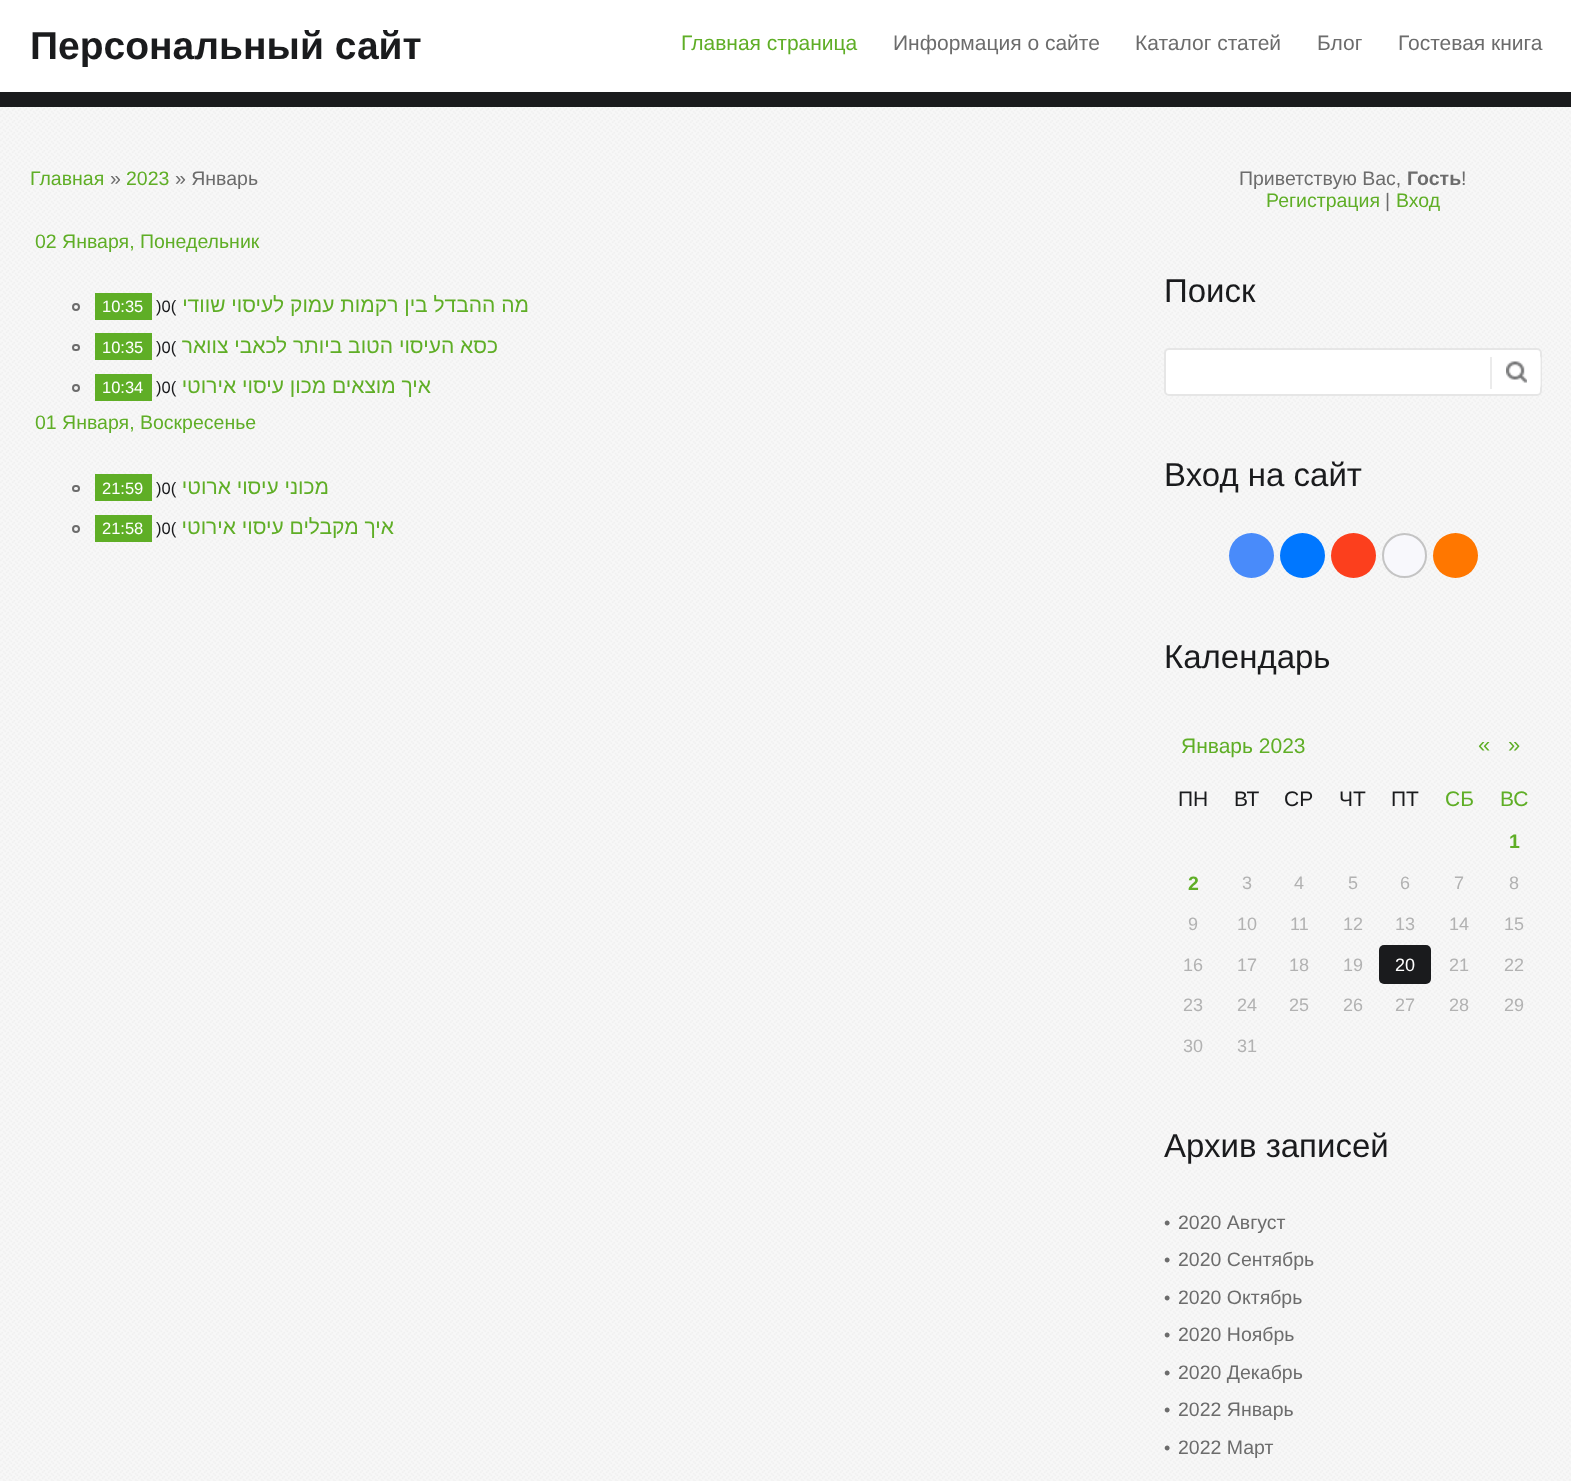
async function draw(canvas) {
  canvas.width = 1571;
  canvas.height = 1481;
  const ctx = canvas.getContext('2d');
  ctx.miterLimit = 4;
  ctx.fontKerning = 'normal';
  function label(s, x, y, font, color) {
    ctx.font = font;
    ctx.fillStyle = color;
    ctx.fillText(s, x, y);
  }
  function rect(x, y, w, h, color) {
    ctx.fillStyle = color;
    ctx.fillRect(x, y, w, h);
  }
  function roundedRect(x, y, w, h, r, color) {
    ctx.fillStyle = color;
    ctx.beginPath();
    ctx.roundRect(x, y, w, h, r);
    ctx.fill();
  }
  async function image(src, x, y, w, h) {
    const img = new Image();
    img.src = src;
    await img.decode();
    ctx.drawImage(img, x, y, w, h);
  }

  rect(0, 0, 1571, 1481, '#fff');
  await image('assets/img1.png', 0, 107, 1571, 1374);
  rect(0, 92, 1571, 15, '#1a1b1d');
  label('Персональный сайт', 30, 59, 'bold 39px Liberation Sans', '#1a1b1d');
  label('Главная страница', 681, 50, '21px Liberation Sans', '#5fae26');
  label('Информация о сайте', 893, 50, '21px Liberation Sans', '#6c6c6c');
  label('Каталог статей', 1135, 50, '21px Liberation Sans', '#6c6c6c');
  label('Блог', 1317, 50, '21px Liberation Sans', '#6c6c6c');
  label('Гостевая книга', 1398, 50, '21px Liberation Sans', '#6c6c6c');
  label('Главная', 30, 185, '19.5px Liberation Sans', '#5fae26');
  label('»', 110, 185, '19.5px Liberation Sans', '#6c6c6c');
  label('2023', 126, 185, '19.5px Liberation Sans', '#5fae26');
  label('» Январь', 175, 185, '19.5px Liberation Sans', '#6c6c6c');
  label('02 Января, Понедельник', 35, 248, '19.5px Liberation Sans', '#5fae26');
  ctx.beginPath();
  ctx.arc(76, 307, 3, 0, 2 * Math.PI);
  ctx.strokeStyle = '#6c6c6c';
  ctx.lineWidth = 2;
  ctx.stroke();
  rect(95, 293, 57, 27, '#5fae26');
  label('10:35', 102, 312, '16.5px Liberation Sans', '#fff');
  label(')0(', 156, 312, '16.5px Liberation Sans', '#1a1b1d');
  ctx.direction = 'rtl';
  label('מה ההבדל בין רקמות עמוק לעיסוי שוודי', 529, 312, '21px Liberation Sans', '#5fae26');
  ctx.beginPath();
  ctx.roundRect(73, 345, 6, 5, 2.5);
  ctx.stroke();
  rect(95, 333, 57, 27, '#5fae26');
  ctx.direction = 'ltr';
  label('10:35', 102, 353, '16.5px Liberation Sans', '#fff');
  label(')0(', 156, 353, '16.5px Liberation Sans', '#1a1b1d');
  ctx.direction = 'rtl';
  label('כסא העיסוי הטוב ביותר לכאבי צוואר', 498, 353, '21px Liberation Sans', '#5fae26');
  ctx.beginPath();
  ctx.arc(76, 388, 3, 0, 2 * Math.PI);
  ctx.stroke();
  rect(95, 374, 57, 27, '#5fae26');
  ctx.direction = 'ltr';
  label('10:34', 102, 393, '16.5px Liberation Sans', '#fff');
  label(')0(', 156, 393, '16.5px Liberation Sans', '#1a1b1d');
  ctx.direction = 'rtl';
  label('איך מוצאים מכון עיסוי אירוטי', 431, 393, '21px Liberation Sans', '#5fae26');
  ctx.direction = 'ltr';
  label('01 Января, Воскресенье', 35, 429, '19.5px Liberation Sans', '#5fae26');
  ctx.beginPath();
  ctx.roundRect(73, 486, 6, 5, 2.5);
  ctx.stroke();
  rect(95, 474, 57, 27, '#5fae26');
  label('21:59', 102, 494, '16.5px Liberation Sans', '#fff');
  label(')0(', 156, 494, '16.5px Liberation Sans', '#1a1b1d');
  ctx.direction = 'rtl';
  label('מכוני עיסוי ארוטי', 329, 494, '21px Liberation Sans', '#5fae26');
  ctx.beginPath();
  ctx.arc(76, 529, 3, 0, 2 * Math.PI);
  ctx.stroke();
  rect(95, 515, 57, 27, '#5fae26');
  ctx.direction = 'ltr';
  label('21:58', 102, 534, '16.5px Liberation Sans', '#fff');
  label(')0(', 156, 534, '16.5px Liberation Sans', '#1a1b1d');
  ctx.direction = 'rtl';
  label('איך מקבלים עיסוי אירוטי', 394, 534, '21px Liberation Sans', '#5fae26');
  ctx.direction = 'ltr';
  label('Приветствую Вас,', 1239, 185, '19.5px Liberation Sans', '#6c6c6c');
  label('Гость', 1407, 185, 'bold 19.5px Liberation Sans', '#6c6c6c');
  label('!', 1461, 185, '19.5px Liberation Sans', '#6c6c6c');
  label('Регистрация', 1266, 207, '19.5px Liberation Sans', '#5fae26');
  label('|', 1385, 207, '19.5px Liberation Sans', '#6c6c6c');
  label('Вход', 1396, 207, '19.5px Liberation Sans', '#5fae26');
  label('Поиск', 1164, 302, '33px Liberation Sans', '#1a1b1d');
  ctx.fillStyle = '#fff';
  ctx.beginPath();
  ctx.roundRect(1165, 349, 376, 46, 4);
  ctx.fill();
  ctx.strokeStyle = '#e6e6e6';
  ctx.stroke();
  roundedRect(1490, 354, 51, 36, 5, '#ffffff99');
  await image('assets/img2.png', 1506, 361, 21, 22);
  rect(1490, 357, 2, 32, '#ebebeb');
  label('Вход на сайт', 1164, 486, '33px Liberation Sans', '#1a1b1d');
  ctx.fillStyle = '#498bfa';
  ctx.beginPath();
  ctx.arc(1251.5, 555.5, 22.5, 0, 2 * Math.PI);
  ctx.fill();
  ctx.fillStyle = '#07f';
  ctx.beginPath();
  ctx.arc(1302.5, 555.5, 22.5, 0, 2 * Math.PI);
  ctx.fill();
  ctx.fillStyle = '#fc3f1d';
  ctx.beginPath();
  ctx.arc(1353.5, 555.5, 22.5, 0, 2 * Math.PI);
  ctx.fill();
  ctx.fillStyle = '#f8f8fc';
  ctx.beginPath();
  ctx.arc(1404.5, 555.5, 21.5, 0, 2 * Math.PI);
  ctx.fill();
  ctx.strokeStyle = '#c4c4c4';
  ctx.stroke();
  ctx.fillStyle = '#f70';
  ctx.beginPath();
  ctx.arc(1455.5, 555.5, 22.5, 0, 2 * Math.PI);
  ctx.fill();
  label('Календарь', 1164, 668, '33px Liberation Sans', '#1a1b1d');
  label('Январь 2023', 1181, 753, '21px Liberation Sans', '#5fae26');
  label('«', 1478, 752, '22px Liberation Sans', '#5fae26');
  label('»', 1508, 752, '22px Liberation Sans', '#5fae26');
  label('ПН', 1178, 806, '21px Liberation Sans', '#1a1b1d');
  label('ВТ', 1234, 806, '21px Liberation Sans', '#1a1b1d');
  label('СР', 1284, 806, '21px Liberation Sans', '#1a1b1d');
  label('ЧТ', 1339, 806, '21px Liberation Sans', '#1a1b1d');
  label('ПТ', 1391, 806, '21px Liberation Sans', '#1a1b1d');
  label('СБ', 1445, 806, '21px Liberation Sans', '#5fae26');
  label('ВС', 1500, 806, '21px Liberation Sans', '#5fae26');
  label('1', 1509, 848, 'bold 19.5px Liberation Sans', '#5fae26');
  label('2', 1188, 890, 'bold 19.5px Liberation Sans', '#5fae26');
  label('3', 1242, 889, '18px Liberation Sans', '#b2b2b2');
  label('4', 1294, 889, '18px Liberation Sans', '#b2b2b2');
  label('5', 1348, 889, '18px Liberation Sans', '#b2b2b2');
  label('6', 1400, 889, '18px Liberation Sans', '#b2b2b2');
  label('7', 1454, 889, '18px Liberation Sans', '#b2b2b2');
  label('8', 1509, 889, '18px Liberation Sans', '#b2b2b2');
  label('9', 1188, 930, '18px Liberation Sans', '#b2b2b2');
  label('10', 1237, 930, '18px Liberation Sans', '#b2b2b2');
  label('11', 1290, 930, '18px Liberation Sans', '#b2b2b2');
  label('12', 1343, 930, '18px Liberation Sans', '#b2b2b2');
  label('13', 1395, 930, '18px Liberation Sans', '#b2b2b2');
  label('14', 1449, 930, '18px Liberation Sans', '#b2b2b2');
  label('15', 1504, 930, '18px Liberation Sans', '#b2b2b2');
  label('16', 1183, 971, '18px Liberation Sans', '#b2b2b2');
  label('17', 1237, 971, '18px Liberation Sans', '#b2b2b2');
  label('18', 1289, 971, '18px Liberation Sans', '#b2b2b2');
  label('19', 1343, 971, '18px Liberation Sans', '#b2b2b2');
  roundedRect(1379, 945, 52, 39, 5, '#1a1b1d');
  label('20', 1395, 971, '18px Liberation Sans', '#fff');
  label('21', 1449, 971, '18px Liberation Sans', '#b2b2b2');
  label('22', 1504, 971, '18px Liberation Sans', '#b2b2b2');
  label('23', 1183, 1011, '18px Liberation Sans', '#b2b2b2');
  label('24', 1237, 1011, '18px Liberation Sans', '#b2b2b2');
  label('25', 1289, 1011, '18px Liberation Sans', '#b2b2b2');
  label('26', 1343, 1011, '18px Liberation Sans', '#b2b2b2');
  label('27', 1395, 1011, '18px Liberation Sans', '#b2b2b2');
  label('28', 1449, 1011, '18px Liberation Sans', '#b2b2b2');
  label('29', 1504, 1011, '18px Liberation Sans', '#b2b2b2');
  label('30', 1183, 1052, '18px Liberation Sans', '#b2b2b2');
  label('31', 1237, 1052, '18px Liberation Sans', '#b2b2b2');
  label('Архив записей', 1164, 1157, '33px Liberation Sans', '#1a1b1d');
  label('•', 1164, 1229, '18px Liberation Sans', '#6c6c6c');
  label('2020 Август', 1178, 1229, '19.5px Liberation Sans', '#6c6c6c');
  label('•', 1164, 1266, '18px Liberation Sans', '#6c6c6c');
  label('2020 Сентябрь', 1178, 1266, '19.5px Liberation Sans', '#6c6c6c');
  label('•', 1164, 1304, '18px Liberation Sans', '#6c6c6c');
  label('2020 Октябрь', 1178, 1304, '19.5px Liberation Sans', '#6c6c6c');
  label('•', 1164, 1341, '18px Liberation Sans', '#6c6c6c');
  label('2020 Ноябрь', 1178, 1341, '19.5px Liberation Sans', '#6c6c6c');
  label('•', 1164, 1379, '18px Liberation Sans', '#6c6c6c');
  label('2020 Декабрь', 1178, 1379, '19.5px Liberation Sans', '#6c6c6c');
  label('•', 1164, 1416, '18px Liberation Sans', '#6c6c6c');
  label('2022 Январь', 1178, 1416, '19.5px Liberation Sans', '#6c6c6c');
  label('•', 1164, 1454, '18px Liberation Sans', '#6c6c6c');
  label('2022 Март', 1178, 1454, '19.5px Liberation Sans', '#6c6c6c');
}

draw(document.querySelector('canvas'));
